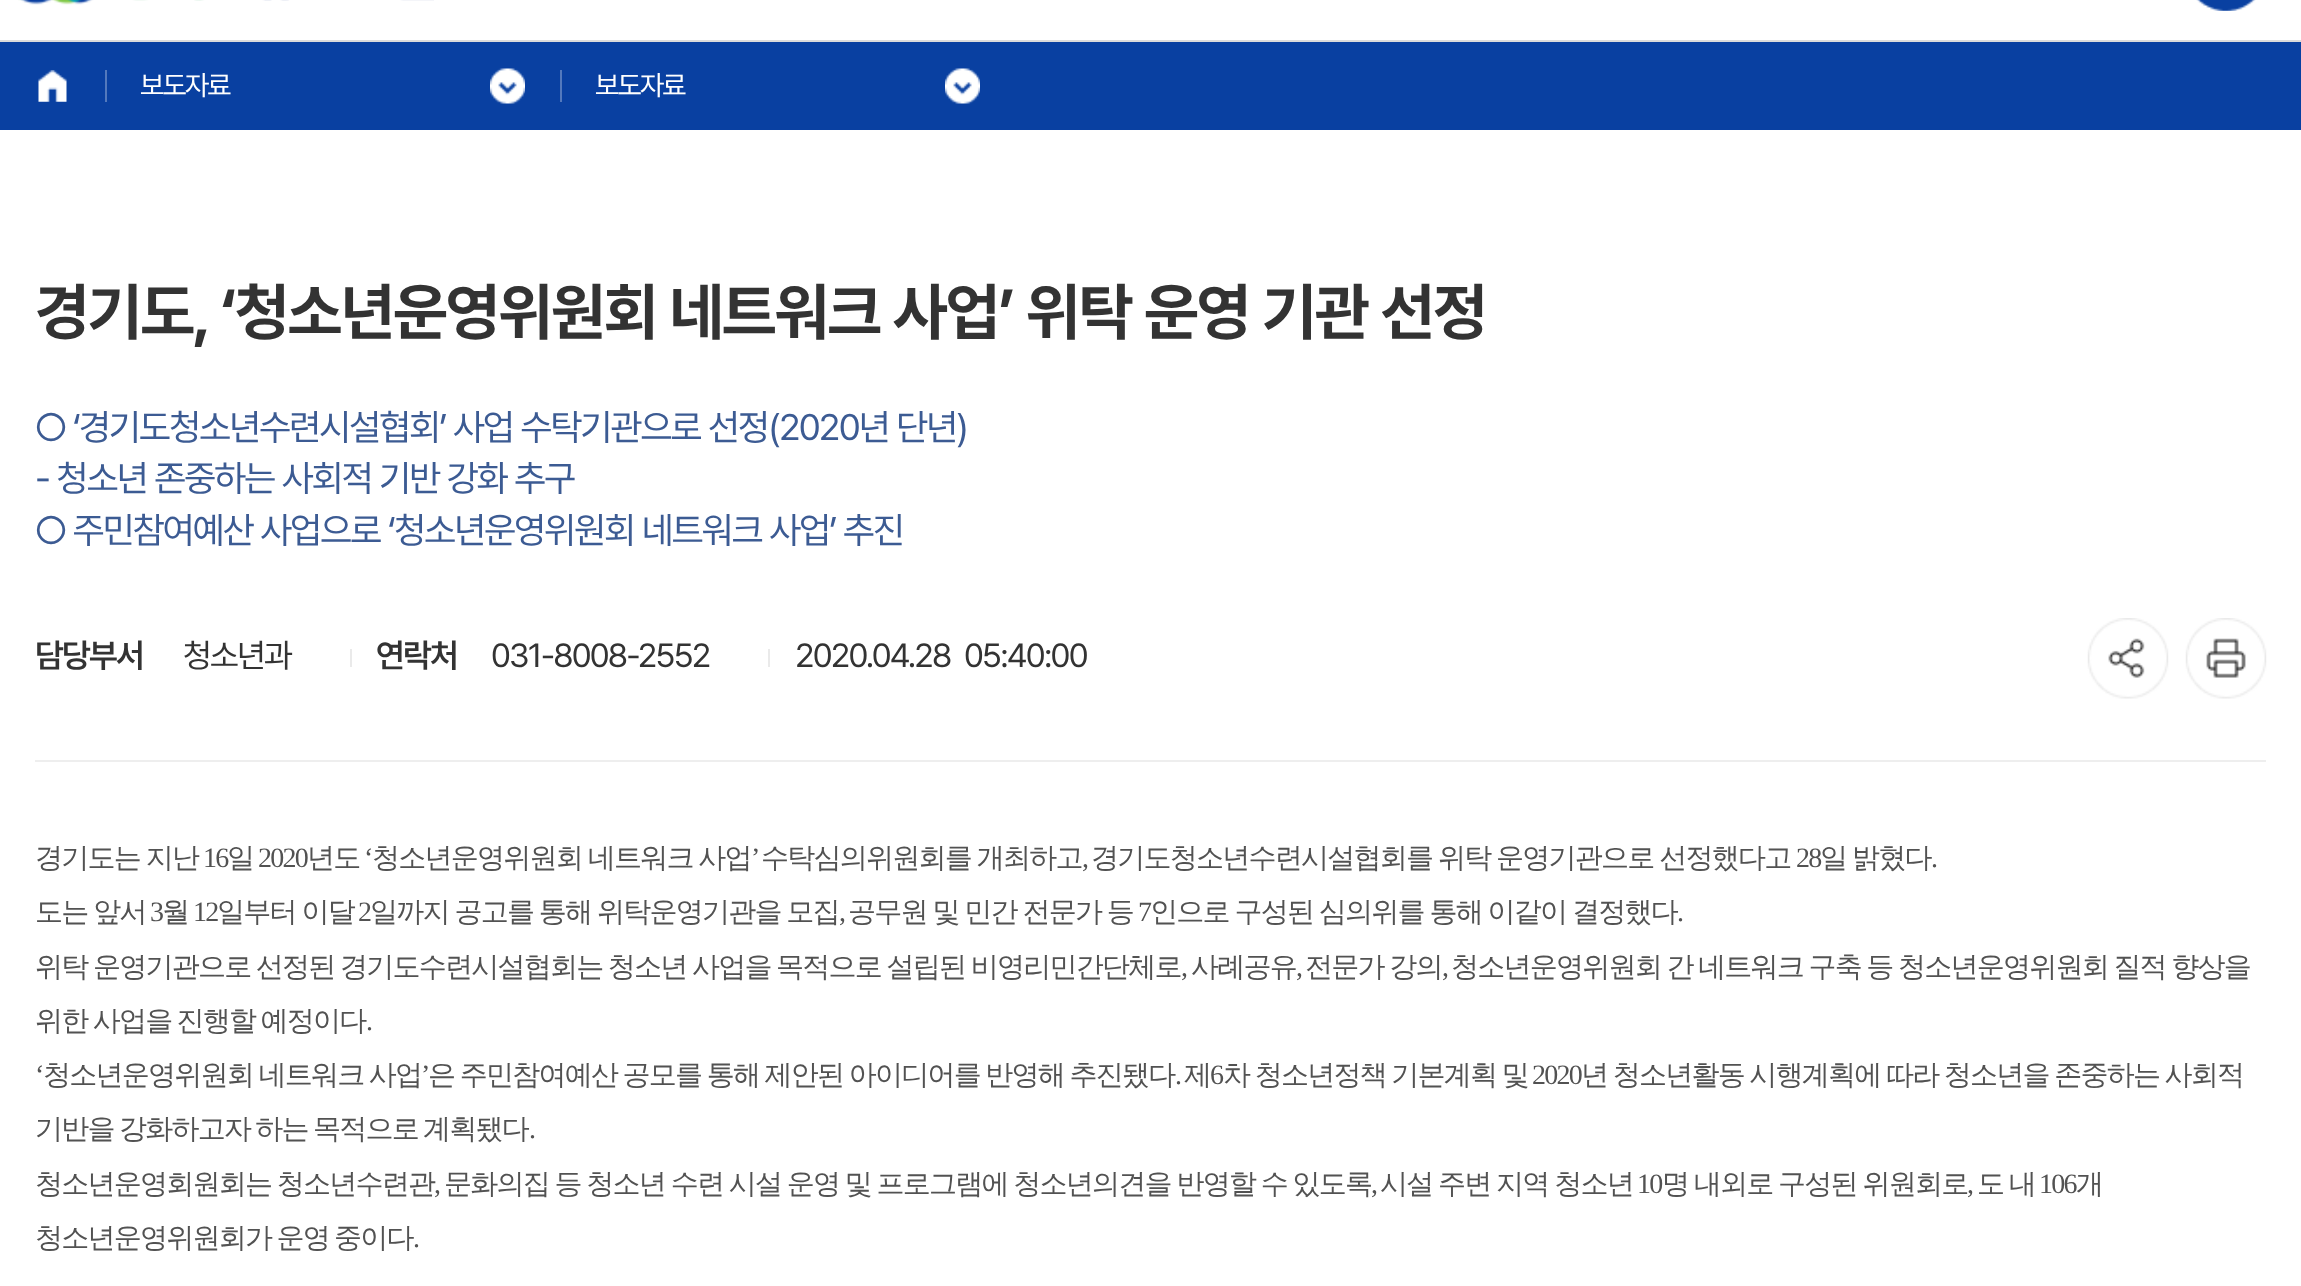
async function draw(canvas) {
  canvas.width = 2301;
  canvas.height = 1286;
  const ctx = canvas.getContext('2d');
  ctx.miterLimit = 4;
  ctx.fontKerning = 'normal';
  function label(s, x, y, font, color) {
    ctx.font = font;
    ctx.fillStyle = color;
    ctx.fillText(s, x, y);
  }
  function rect(x, y, w, h, color) {
    ctx.fillStyle = color;
    ctx.fillRect(x, y, w, h);
  }
  async function image(src, x, y, w, h) {
    const img = new Image();
    img.src = src;
    await img.decode();
    ctx.drawImage(img, x, y, w, h);
  }

  rect(0, 0, 2301, 1286, '#fff');
  rect(0, 40, 2301, 2, '#dbdbdb');
  await image('assets/img1.png', 18, 0, 416, 5);
  await image('assets/img2.png', 2196, 0, 60, 11);
  rect(0, 42, 2301, 88, '#0940a1');
  await image('assets/img3.png', 38, 70, 29, 32);
  rect(105, 70, 2, 32, '#5379bd');
  ctx.letterSpacing = '-1.75px';
  label('보도자료', 140, 95, '28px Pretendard', '#fff');
  await image('assets/img4.png', 490, 68, 35, 36);
  rect(560, 70, 2, 32, '#5379bd');
  label('보도자료', 595, 95, '28px Pretendard', '#fff');
  await image('assets/img5.png', 945, 68, 35, 36);
  label('경기도, ‘청소년운영위원회 네트워크 사업’ 위탁 운영 기관 선정', 35, 334, 'bold 63px Pretendard', '#333');
  label('○ ‘경기도청소년수련시설협회’ 사업 수탁기관으로 선정(2020년 단년)', 35, 440, '36.75px Pretendard', '#3c5b93');
  label('- 청소년 존중하는 사회적 기반 강화 추구', 35, 491, '36.75px Pretendard', '#3c5b93');
  label('○ 주민참여예산 사업으로 ‘청소년운영위원회 네트워크 사업’ 추진', 35, 543, '36.75px Pretendard', '#3c5b93');
  label('담당부서', 35, 667, '600 33.25px Pretendard', '#333');
  label('청소년과', 183, 667, '33.25px Pretendard', '#333');
  rect(350, 649, 2, 18, '#eaeaea');
  label('연락처', 376, 667, '600 33.25px Pretendard', '#333');
  label('031-8008-2552', 491, 667, '33.25px Pretendard', '#333');
  rect(768, 649, 2, 18, '#eaeaea');
  label('2020.04.28', 795, 667, '33.25px Pretendard', '#333');
  label('05:40:00', 964, 667, '33.25px Pretendard', '#333');
  await image('assets/img6.png', 2087, 618, 82, 81);
  await image('assets/img7.png', 2185, 618, 82, 81);
  rect(35, 760, 2231, 2, '#eee');
  ctx.wordSpacing = '-1px';
  label('경기도는 지난', 35, 867, '500 28px WenQuanYi Zen Hei', '#525252');
  ctx.wordSpacing = '0px';
  label('16', 203, 867, '28px Liberation Serif', '#525252');
  label('일', 227, 867, '500 28px WenQuanYi Zen Hei', '#525252');
  label('2020', 258, 867, '28px Liberation Serif', '#525252');
  label('년도', 307, 867, '500 28px WenQuanYi Zen Hei', '#525252');
  label('‘', 364, 867, '28px Liberation Serif', '#525252');
  ctx.wordSpacing = '-1px';
  label('청소년운영위원회 네트워크 사업', 372, 867, '500 28px WenQuanYi Zen Hei', '#525252');
  ctx.wordSpacing = '0px';
  label('’', 751, 867, '28px Liberation Serif', '#525252');
  ctx.wordSpacing = '-1px';
  label('수탁심의위원회를 개최하고', 761, 867, '500 28px WenQuanYi Zen Hei', '#525252');
  ctx.wordSpacing = '0px';
  label(',', 1082, 867, '28px Liberation Serif', '#525252');
  ctx.wordSpacing = '-1px';
  label('경기도청소년수련시설협회를 위탁 운영기관으로 선정했다고', 1091, 867, '500 28px WenQuanYi Zen Hei', '#525252');
  ctx.wordSpacing = '0px';
  label('28', 1796, 867, '28px Liberation Serif', '#525252');
  ctx.wordSpacing = '-1px';
  label('일 밝혔다', 1820, 867, '500 28px WenQuanYi Zen Hei', '#525252');
  ctx.wordSpacing = '0px';
  label('.', 1931, 867, '28px Liberation Serif', '#525252');
  ctx.wordSpacing = '-1px';
  label('도는 앞서', 35, 921, '500 28px WenQuanYi Zen Hei', '#525252');
  ctx.wordSpacing = '0px';
  label('3', 150, 921, '28px Liberation Serif', '#525252');
  label('월', 162, 921, '500 28px WenQuanYi Zen Hei', '#525252');
  label('12', 193, 921, '28px Liberation Serif', '#525252');
  ctx.wordSpacing = '-1px';
  label('일부터 이달', 217, 921, '500 28px WenQuanYi Zen Hei', '#525252');
  ctx.wordSpacing = '0px';
  label('2', 358, 921, '28px Liberation Serif', '#525252');
  ctx.wordSpacing = '-1px';
  label('일까지 공고를 통해 위탁운영기관을 모집', 370, 921, '500 28px WenQuanYi Zen Hei', '#525252');
  label('공무원 및 민간 전문가 등', 848, 921, '500 28px WenQuanYi Zen Hei', '#525252');
  ctx.wordSpacing = '0px';
  label('7', 1138, 921, '28px Liberation Serif', '#525252');
  ctx.wordSpacing = '-1px';
  label('인으로 구성된 심의위를 통해 이같이 결정했다', 1150, 921, '500 28px WenQuanYi Zen Hei', '#525252');
  ctx.wordSpacing = '0px';
  label(',', 839, 921, '28px Liberation Serif', '#525252');
  label('.', 1677, 921, '28px Liberation Serif', '#525252');
  ctx.wordSpacing = '-1.25px';
  label('위탁 운영기관으로 선정된 경기도수련시설협회는 청소년 사업을 목적으로 설립된 비영리민간단체로', 35, 976, '500 28px WenQuanYi Zen Hei', '#525252');
  ctx.wordSpacing = '0px';
  label(',', 1181, 976, '28px Liberation Serif', '#525252');
  label('사례공유', 1191, 976, '500 28px WenQuanYi Zen Hei', '#525252');
  label(',', 1296, 976, '28px Liberation Serif', '#525252');
  ctx.wordSpacing = '-1.25px';
  label('전문가 강의', 1305, 976, '500 28px WenQuanYi Zen Hei', '#525252');
  ctx.wordSpacing = '0px';
  label(',', 1442, 976, '28px Liberation Serif', '#525252');
  ctx.wordSpacing = '-1.25px';
  label('청소년운영위원회 간 네트워크 구축 등 청소년운영위원회 질적 향상을', 1451, 976, '500 28px WenQuanYi Zen Hei', '#525252');
  ctx.wordSpacing = '-1.5px';
  label('위한 사업을 진행할 예정이다', 35, 1030, '500 28px WenQuanYi Zen Hei', '#525252');
  ctx.wordSpacing = '0px';
  label('.', 366, 1030, '28px Liberation Serif', '#525252');
  label('‘', 35, 1084, '28px Liberation Serif', '#525252');
  ctx.wordSpacing = '-1.25px';
  label('청소년운영위원회 네트워크 사업', 43, 1084, '500 28px WenQuanYi Zen Hei', '#525252');
  ctx.wordSpacing = '0px';
  label('’', 421, 1084, '28px Liberation Serif', '#525252');
  ctx.wordSpacing = '-1.25px';
  label('은 주민참여예산 공모를 통해 제안된 아이디어를 반영해 추진됐다', 428, 1084, '500 28px WenQuanYi Zen Hei', '#525252');
  ctx.wordSpacing = '0px';
  label('.', 1175, 1084, '28px Liberation Serif', '#525252');
  label('제', 1184, 1084, '500 28px WenQuanYi Zen Hei', '#525252');
  label('6', 1210, 1084, '28px Liberation Serif', '#525252');
  ctx.wordSpacing = '-1.25px';
  label('차 청소년정책 기본계획 및', 1223, 1084, '500 28px WenQuanYi Zen Hei', '#525252');
  ctx.wordSpacing = '0px';
  label('2020', 1532, 1084, '28px Liberation Serif', '#525252');
  ctx.wordSpacing = '-1.25px';
  label('년 청소년활동 시행계획에 따라 청소년을 존중하는 사회적', 1581, 1084, '500 28px WenQuanYi Zen Hei', '#525252');
  ctx.wordSpacing = '-1.5px';
  label('기반을 강화하고자 하는 목적으로 계획됐다', 35, 1138, '500 28px WenQuanYi Zen Hei', '#525252');
  ctx.wordSpacing = '0px';
  label('.', 529, 1138, '28px Liberation Serif', '#525252');
  ctx.wordSpacing = '-1.1px';
  label('청소년운영회원회는 청소년수련관', 35, 1193, '500 28px WenQuanYi Zen Hei', '#525252');
  ctx.wordSpacing = '0px';
  label(',', 434, 1193, '28px Liberation Serif', '#525252');
  ctx.wordSpacing = '-1.1px';
  label('문화의집 등 청소년 수련 시설 운영 및 프로그램에 청소년의견을 반영할 수 있도록', 444, 1193, '500 28px WenQuanYi Zen Hei', '#525252');
  ctx.wordSpacing = '0px';
  label(',', 1371, 1193, '28px Liberation Serif', '#525252');
  ctx.wordSpacing = '-1.1px';
  label('시설 주변 지역 청소년', 1380, 1193, '500 28px WenQuanYi Zen Hei', '#525252');
  ctx.wordSpacing = '0px';
  label('10', 1637, 1193, '28px Liberation Serif', '#525252');
  ctx.wordSpacing = '-1.1px';
  label('명 내외로 구성된 위원회로', 1662, 1193, '500 28px WenQuanYi Zen Hei', '#525252');
  ctx.wordSpacing = '0px';
  label(',', 1967, 1193, '28px Liberation Serif', '#525252');
  ctx.wordSpacing = '-1.1px';
  label('도 내', 1977, 1193, '500 28px WenQuanYi Zen Hei', '#525252');
  ctx.wordSpacing = '0px';
  label('106', 2039, 1193, '28px Liberation Serif', '#525252');
  label('개', 2076, 1193, '500 28px WenQuanYi Zen Hei', '#525252');
  ctx.wordSpacing = '-1.5px';
  label('청소년운영위원회가 운영 중이다', 35, 1247, '500 28px WenQuanYi Zen Hei', '#525252');
  ctx.wordSpacing = '0px';
  label('.', 413, 1247, '28px Liberation Serif', '#525252');
}

draw(document.querySelector('canvas'));
